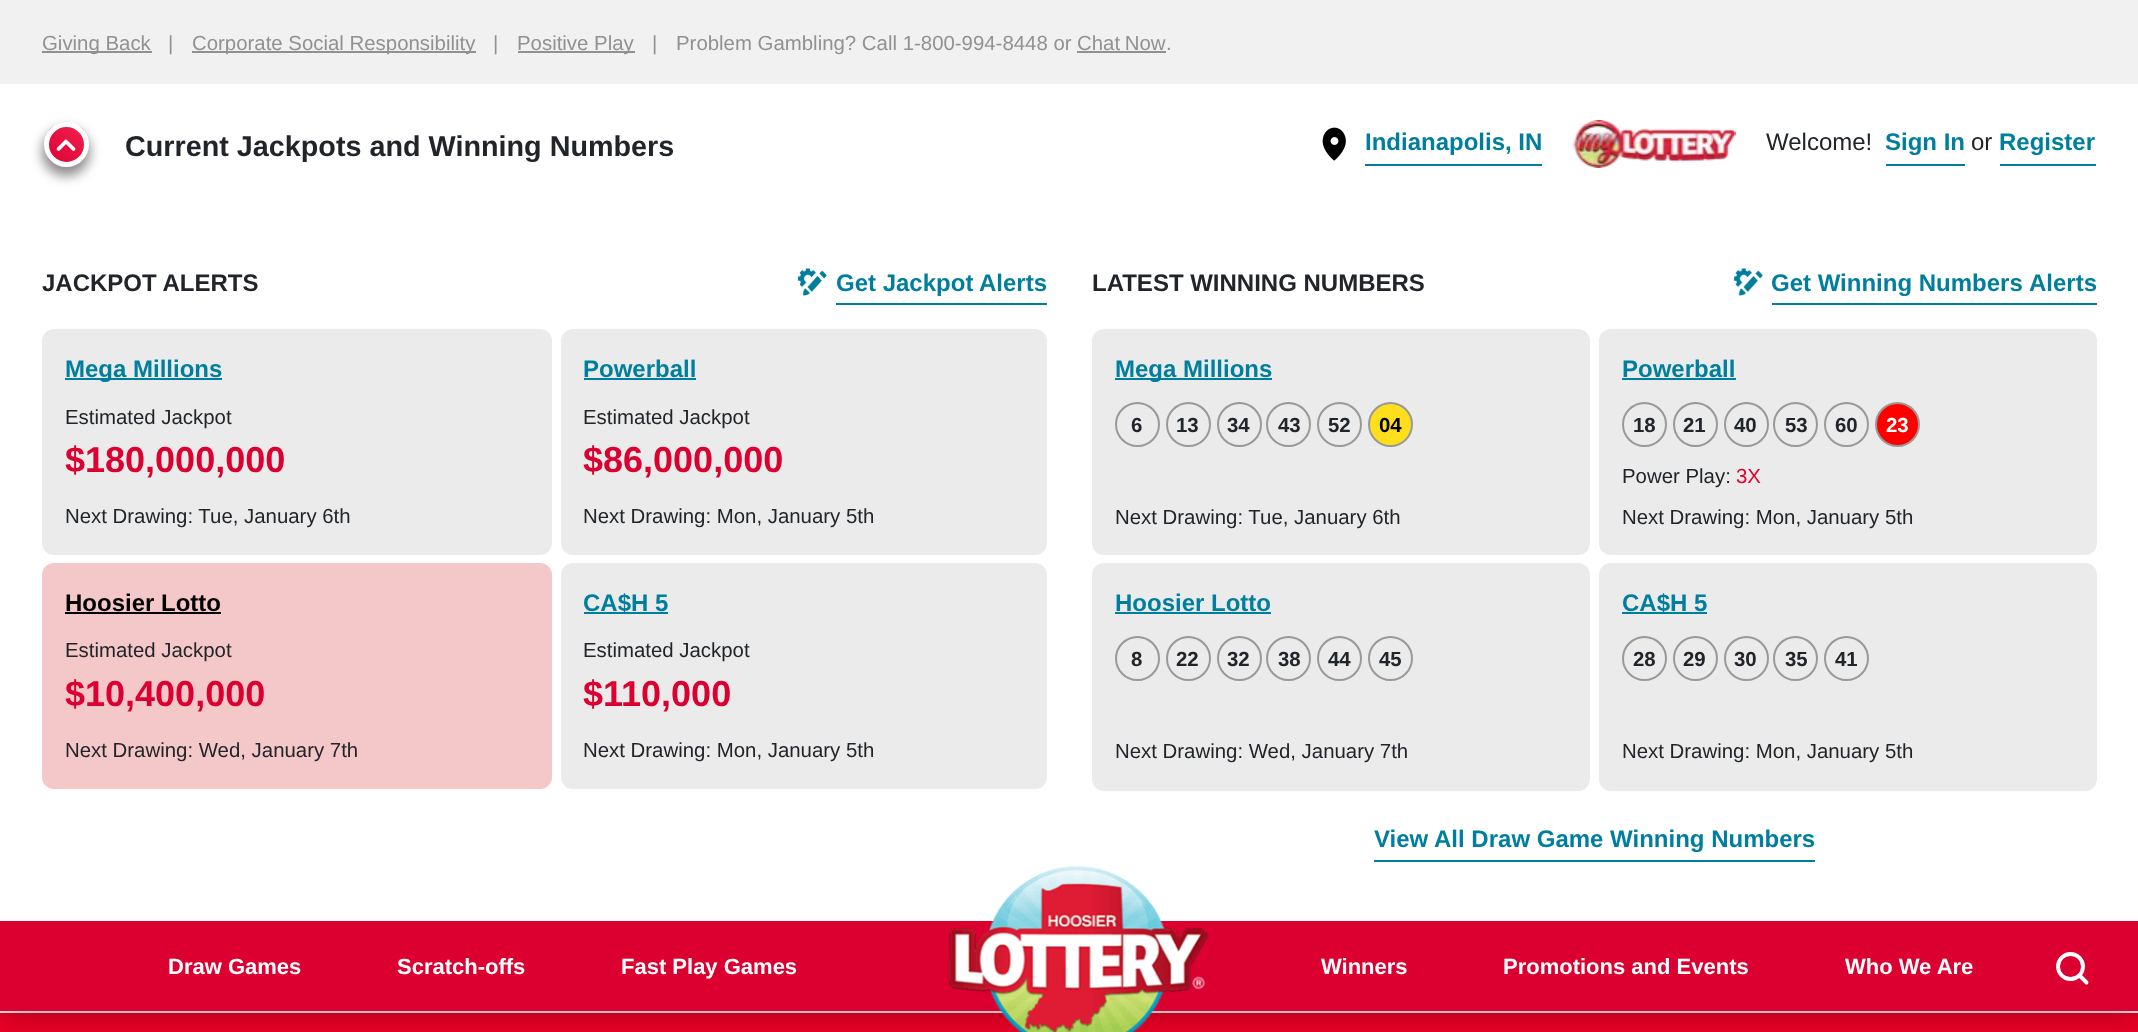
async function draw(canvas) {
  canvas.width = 2138;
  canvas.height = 1032;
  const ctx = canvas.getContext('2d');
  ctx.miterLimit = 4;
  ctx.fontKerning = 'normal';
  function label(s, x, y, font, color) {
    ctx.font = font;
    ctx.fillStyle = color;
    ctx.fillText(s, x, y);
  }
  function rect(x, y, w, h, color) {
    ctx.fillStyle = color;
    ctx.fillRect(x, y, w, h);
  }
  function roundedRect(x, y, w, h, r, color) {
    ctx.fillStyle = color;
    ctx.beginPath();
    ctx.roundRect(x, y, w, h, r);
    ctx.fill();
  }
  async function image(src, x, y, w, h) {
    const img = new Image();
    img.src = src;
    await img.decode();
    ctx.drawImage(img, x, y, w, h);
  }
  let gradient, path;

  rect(0, 0, 2138, 1032, '#ef0027');
  rect(0, 84, 2138, 837, '#fff');
  rect(0, 1011, 2138, 2, '#ebebeb');
  ctx.save();
  ctx.beginPath();
  ctx.rect(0, 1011, 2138, 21);
  ctx.clip();
  ctx.fillStyle = '#00000040';
  ctx.filter = 'blur(15px)';
  ctx.beginPath();
  ctx.rect(0, 8, 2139, 1011);
  ctx.fill();
  ctx.filter = 'none';
  ctx.restore();
  rect(0, 0, 2138, 84, '#f1f1f1');
  rect(42, 51, 110, 2, '#919191');
  label('Giving Back', 42, 50, '20.4px Liberation Sans', '#919191');
  label('|', 168, 50, '20.4px Liberation Sans', '#919191');
  rect(192, 51, 284, 2, '#919191');
  label('Corporate Social Responsibility', 192, 50, '20.4px Liberation Sans', '#919191');
  label('|', 493, 50, '20.4px Liberation Sans', '#919191');
  rect(518, 51, 117, 2, '#919191');
  label('Positive Play', 517, 50, '20.4px Liberation Sans', '#919191');
  label('|', 652, 50, '20.4px Liberation Sans', '#919191');
  label('Problem Gambling? Call 1-800-994-8448 or', 676, 50, '20.4px Liberation Sans', '#919191');
  ctx.wordSpacing = '-1px';
  label('Chat Now', 1077, 50, '20.4px Liberation Sans', '#919191');
  rect(1077, 51, 89, 2, '#919191');
  ctx.wordSpacing = '0px';
  label('.', 1166, 50, '20.4px Liberation Sans', '#919191');
  ctx.fillStyle = '#00000073';
  ctx.filter = 'blur(6px)';
  ctx.beginPath();
  ctx.roundRect(42, 128, 48, 48, 24);
  ctx.fill();
  ctx.filter = 'none';
  ctx.save();
  ctx.beginPath();
  ctx.roundRect(44, 122, 45, 45, 22.5);
  ctx.clip();
  gradient = ctx.createLinearGradient(50, 163, 82, 125);
  gradient.addColorStop(0, '#de0333');
  gradient.addColorStop(0.85, '#ee1c4b');
  ctx.fillStyle = gradient;
  ctx.fillRect(48, 126, 36, 36);
  ctx.restore();
  ctx.beginPath();
  ctx.arc(66.5, 144.5, 20, 0, 2 * Math.PI);
  ctx.strokeStyle = '#fff';
  ctx.lineWidth = 5;
  ctx.stroke();
  path = new Path2D('M73.5 149L66 141.5L58.5 149');
  ctx.lineWidth = 3.8;
  ctx.lineCap = 'round';
  ctx.lineJoin = 'round';
  ctx.stroke(path);
  label('Current Jackpots and Winning Numbers', 125, 156, 'bold 28.75px Liberation Sans', '#212529');
  await image('assets/img1.png', 1322, 127, 24, 34);
  rect(1365, 164, 177, 2, '#007e9e');
  label('Indianapolis, IN', 1365, 150, 'bold 24px Liberation Sans', '#007e9e');
  await image('assets/img2.png', 1573, 120, 163, 48);
  label('Welcome!', 1766, 150, '24px Liberation Sans', '#212529');
  rect(1886, 164, 79, 2, '#007e9e');
  label('Sign In', 1885, 150, 'bold 24px Liberation Sans', '#007e9e');
  label('or', 1971, 150, '24px Liberation Sans', '#212529');
  rect(2000, 164, 96, 2, '#007e9e');
  label('Register', 1999, 150, 'bold 24px Liberation Sans', '#007e9e');
  label('JACKPOT ALERTS', 42, 291, 'bold 24px Liberation Sans', '#212529');
  rect(836, 303, 211, 2, '#007e9e');
  await image('assets/img3.png', 798, 268, 29, 28);
  label('Get Jackpot', 836, 291, 'bold 24px Liberation Sans', '#007e9e');
  label('Alerts', 979, 291, 'bold 24px Liberation Sans', '#007e9e');
  roundedRect(42, 329, 510, 226, 12, '#ebebeb');
  rect(65, 378, 157, 2, '#007e9e');
  label('Mega Millions', 65, 377, 'bold 24px Liberation Sans', '#007e9e');
  label('Estimated Jackpot', 65, 424, '20.4px Liberation Sans', '#212529');
  label('$180,000,000', 65, 472, 'bold 36px Liberation Sans', '#dc0031');
  label('Next Drawing: Tue, January 6th', 65, 523, '20.4px Liberation Sans', '#212529');
  roundedRect(561, 329, 486, 226, 12, '#ebebeb');
  label('Powerball', 583, 377, 'bold 24px Liberation Sans', '#007e9e');
  rect(584, 378, 112, 2, '#007e9e');
  label('Estimated Jackpot', 583, 424, '20.4px Liberation Sans', '#212529');
  label('$86,000,000', 583, 472, 'bold 36px Liberation Sans', '#dc0031');
  label('Next Drawing: Mon, January 5th', 583, 523, '20.4px Liberation Sans', '#212529');
  roundedRect(42, 563, 510, 226, 12, '#f4c7c8');
  label('Hoosier Lotto', 65, 611, 'bold 24px Liberation Sans', '#000');
  rect(65, 612, 156, 2, '#000');
  label('Estimated Jackpot', 65, 657, '20.4px Liberation Sans', '#212529');
  label('$10,400,000', 65, 706, 'bold 36px Liberation Sans', '#dc0031');
  label('Next Drawing: Wed, January 7th', 65, 757, '20.4px Liberation Sans', '#212529');
  roundedRect(561, 563, 486, 226, 12, '#ebebeb');
  rect(584, 612, 84, 2, '#007e9e');
  label('CA$H 5', 583, 611, 'bold 24px Liberation Sans', '#007e9e');
  label('Estimated Jackpot', 583, 657, '20.4px Liberation Sans', '#212529');
  label('$110,000', 583, 706, 'bold 36px Liberation Sans', '#dc0031');
  label('Next Drawing: Mon, January 5th', 583, 757, '20.4px Liberation Sans', '#212529');
  label('LATEST WINNING NUMBERS', 1092, 291, 'bold 24px Liberation Sans', '#212529');
  rect(1772, 303, 325, 2, '#007e9e');
  await image('assets/img4.png', 1733, 268, 30, 28);
  label('Get Winning Numbers', 1771, 291, 'bold 24px Liberation Sans', '#007e9e');
  label('Alerts', 2029, 291, 'bold 24px Liberation Sans', '#007e9e');
  roundedRect(1092, 329, 498, 226, 12, '#ebebeb');
  rect(1115, 378, 157, 2, '#007e9e');
  label('Mega Millions', 1115, 377, 'bold 24px Liberation Sans', '#007e9e');
  ctx.beginPath();
  ctx.arc(1137.5, 424.5, 21.5, 0, 2 * Math.PI);
  ctx.strokeStyle = '#999';
  ctx.lineWidth = 2;
  ctx.stroke();
  label('6', 1131, 432, 'bold 20.4px Liberation Sans', '#212529');
  ctx.beginPath();
  ctx.arc(1188.5, 424.5, 21.5, 0, 2 * Math.PI);
  ctx.stroke();
  label('13', 1176, 432, 'bold 20.4px Liberation Sans', '#212529');
  ctx.beginPath();
  ctx.arc(1239.5, 424.5, 21.5, 0, 2 * Math.PI);
  ctx.stroke();
  label('34', 1227, 432, 'bold 20.4px Liberation Sans', '#212529');
  ctx.beginPath();
  ctx.arc(1288.5, 424.5, 21.5, 0, 2 * Math.PI);
  ctx.stroke();
  label('43', 1278, 432, 'bold 20.4px Liberation Sans', '#212529');
  ctx.beginPath();
  ctx.arc(1339.5, 424.5, 21.5, 0, 2 * Math.PI);
  ctx.stroke();
  label('52', 1328, 432, 'bold 20.4px Liberation Sans', '#212529');
  ctx.fillStyle = '#ffdf1b';
  ctx.beginPath();
  ctx.arc(1390.5, 424.5, 21.5, 0, 2 * Math.PI);
  ctx.fill();
  ctx.stroke();
  label('04', 1379, 432, 'bold 20.4px Liberation Sans', '#000');
  label('Next Drawing: Tue, January 6th', 1115, 524, '20.4px Liberation Sans', '#212529');
  roundedRect(1599, 329, 498, 226, 12, '#ebebeb');
  label('Powerball', 1622, 377, 'bold 24px Liberation Sans', '#007e9e');
  rect(1622, 378, 114, 2, '#007e9e');
  ctx.beginPath();
  ctx.arc(1644.5, 424.5, 21.5, 0, 2 * Math.PI);
  ctx.stroke();
  label('18', 1633, 432, 'bold 20.4px Liberation Sans', '#212529');
  ctx.beginPath();
  ctx.arc(1695.5, 424.5, 21.5, 0, 2 * Math.PI);
  ctx.stroke();
  label('21', 1683, 432, 'bold 20.4px Liberation Sans', '#212529');
  ctx.beginPath();
  ctx.arc(1746.5, 424.5, 21.5, 0, 2 * Math.PI);
  ctx.stroke();
  label('40', 1734, 432, 'bold 20.4px Liberation Sans', '#212529');
  ctx.beginPath();
  ctx.arc(1795.5, 424.5, 21.5, 0, 2 * Math.PI);
  ctx.stroke();
  label('53', 1785, 432, 'bold 20.4px Liberation Sans', '#212529');
  ctx.beginPath();
  ctx.arc(1846.5, 424.5, 21.5, 0, 2 * Math.PI);
  ctx.stroke();
  label('60', 1835, 432, 'bold 20.4px Liberation Sans', '#212529');
  ctx.fillStyle = '#f00';
  ctx.beginPath();
  ctx.arc(1897.5, 424.5, 21.5, 0, 2 * Math.PI);
  ctx.fill();
  ctx.stroke();
  label('23', 1886, 432, 'bold 20.4px Liberation Sans', '#fff');
  label('Power Play:', 1622, 483, '20.4px Liberation Sans', '#212529');
  label('3X', 1736, 483, '20.4px Liberation Sans', '#dc0031');
  label('Next Drawing: Mon, January 5th', 1622, 524, '20.4px Liberation Sans', '#212529');
  roundedRect(1092, 563, 498, 228, 12, '#ebebeb');
  label('Hoosier Lotto', 1115, 611, 'bold 24px Liberation Sans', '#007e9e');
  rect(1115, 612, 156, 2, '#007e9e');
  ctx.beginPath();
  ctx.arc(1137.5, 658.5, 21.5, 0, 2 * Math.PI);
  ctx.stroke();
  label('8', 1131, 666, 'bold 20.4px Liberation Sans', '#212529');
  ctx.beginPath();
  ctx.arc(1188.5, 658.5, 21.5, 0, 2 * Math.PI);
  ctx.stroke();
  label('22', 1176, 666, 'bold 20.4px Liberation Sans', '#212529');
  ctx.beginPath();
  ctx.arc(1239.5, 658.5, 21.5, 0, 2 * Math.PI);
  ctx.stroke();
  label('32', 1227, 666, 'bold 20.4px Liberation Sans', '#212529');
  ctx.beginPath();
  ctx.arc(1288.5, 658.5, 21.5, 0, 2 * Math.PI);
  ctx.stroke();
  label('38', 1278, 666, 'bold 20.4px Liberation Sans', '#212529');
  ctx.beginPath();
  ctx.arc(1339.5, 658.5, 21.5, 0, 2 * Math.PI);
  ctx.stroke();
  label('44', 1328, 666, 'bold 20.4px Liberation Sans', '#212529');
  ctx.beginPath();
  ctx.arc(1390.5, 658.5, 21.5, 0, 2 * Math.PI);
  ctx.stroke();
  label('45', 1379, 666, 'bold 20.4px Liberation Sans', '#212529');
  label('Next Drawing: Wed, January 7th', 1115, 758, '20.4px Liberation Sans', '#212529');
  roundedRect(1599, 563, 498, 228, 12, '#ebebeb');
  rect(1622, 612, 85, 2, '#007e9e');
  label('CA$H 5', 1622, 611, 'bold 24px Liberation Sans', '#007e9e');
  ctx.beginPath();
  ctx.arc(1644.5, 658.5, 21.5, 0, 2 * Math.PI);
  ctx.stroke();
  label('28', 1633, 666, 'bold 20.4px Liberation Sans', '#212529');
  ctx.beginPath();
  ctx.arc(1695.5, 658.5, 21.5, 0, 2 * Math.PI);
  ctx.stroke();
  label('29', 1683, 666, 'bold 20.4px Liberation Sans', '#212529');
  ctx.beginPath();
  ctx.arc(1746.5, 658.5, 21.5, 0, 2 * Math.PI);
  ctx.stroke();
  label('30', 1734, 666, 'bold 20.4px Liberation Sans', '#212529');
  ctx.beginPath();
  ctx.arc(1795.5, 658.5, 21.5, 0, 2 * Math.PI);
  ctx.stroke();
  label('35', 1785, 666, 'bold 20.4px Liberation Sans', '#212529');
  ctx.beginPath();
  ctx.arc(1846.5, 658.5, 21.5, 0, 2 * Math.PI);
  ctx.stroke();
  label('41', 1835, 666, 'bold 20.4px Liberation Sans', '#212529');
  label('Next Drawing: Mon, January 5th', 1622, 758, '20.4px Liberation Sans', '#212529');
  rect(1374, 860, 441, 2, '#007e9e');
  label('View All Draw Game Winning Numbers', 1374, 847, 'bold 24px Liberation Sans', '#007e9e');
  rect(0, 921, 2138, 90, '#dc0031');
  label('Draw Games', 168, 974, 'bold 22px Liberation Sans', '#fff');
  label('Scratch-offs', 397, 974, 'bold 22px Liberation Sans', '#fff');
  label('Fast Play Games', 621, 974, 'bold 22px Liberation Sans', '#fff');
  await image('assets/img5.png', 948, 866, 261, 166);
  label('Winners', 1321, 974, 'bold 22px Liberation Sans', '#fff');
  label('Promotions and Events', 1503, 974, 'bold 22px Liberation Sans', '#fff');
  label('Who We Are', 1845, 974, 'bold 22px Liberation Sans', '#fff');
  ctx.beginPath();
  ctx.arc(2070.5, 966.5, 12.5, 0, 2 * Math.PI);
  ctx.strokeStyle = '#fff';
  ctx.lineWidth = 3.9;
  ctx.stroke();
  path = new Path2D('M2086.5 982.5L2079.5 975.5');
  ctx.stroke(path);
}

draw(document.querySelector('canvas'));
